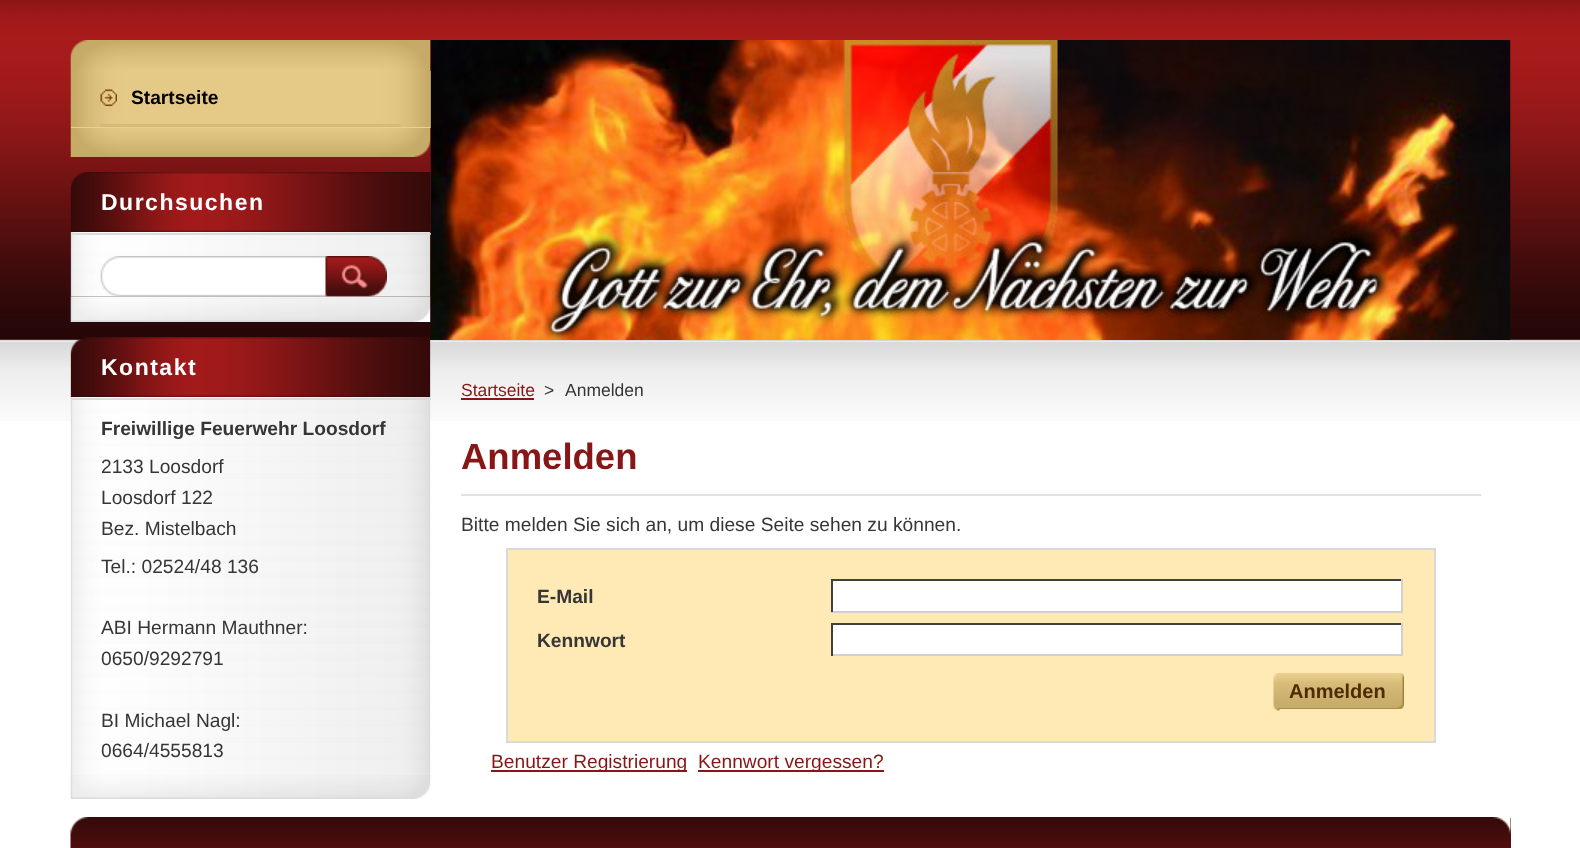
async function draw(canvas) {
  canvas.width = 1580;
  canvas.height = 848;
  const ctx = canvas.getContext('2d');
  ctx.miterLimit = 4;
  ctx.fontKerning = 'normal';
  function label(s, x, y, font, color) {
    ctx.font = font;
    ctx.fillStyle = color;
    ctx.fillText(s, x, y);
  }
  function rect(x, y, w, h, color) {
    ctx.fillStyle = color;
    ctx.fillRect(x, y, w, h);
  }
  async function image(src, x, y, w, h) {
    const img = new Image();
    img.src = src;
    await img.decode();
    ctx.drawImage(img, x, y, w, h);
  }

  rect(0, 0, 1580, 848, '#fff');
  await image('assets/img1.png', 0, 0, 1580, 421);
  await image('assets/img2.png', 70, 40, 361, 30);
  await image('assets/img3.png', 70, 127, 361, 30);
  rect(71, 71, 360, 57, '#ebcf8d');
  await image('assets/img4.png', 70, 70, 361, 57);
  rect(100, 124, 301, 3, '#d4b97b');
  await image('assets/img5.png', 100, 89, 17, 17);
  label('Startseite', 131, 104, 'bold 19.2px Liberation Sans', '#000');
  await image('assets/img6.png', 70, 296, 361, 26);
  await image('assets/img7.png', 70, 172, 361, 60);
  ctx.letterSpacing = '1.5px';
  label('Durchsuchen', 101, 210, 'bold 23px Liberation Sans', '#fff');
  await image('assets/img8.png', 70, 232, 361, 65);
  rect(71, 233, 360, 2, '#dbdbdb');
  await image('assets/img9.png', 100, 256, 226, 40);
  await image('assets/img10.png', 325, 256, 62, 41);
  await image('assets/img11.png', 70, 773, 361, 26);
  await image('assets/img12.png', 70, 337, 361, 60);
  label('Kontakt', 101, 375, 'bold 23px Liberation Sans', '#fff');
  await image('assets/img13.png', 70, 397, 361, 377);
  rect(71, 398, 360, 2, '#dbdbdb');
  ctx.letterSpacing = '0px';
  label('Freiwillige Feuerwehr Loosdorf', 101, 435, 'bold 19.2px Liberation Sans', '#363636');
  label('2133 Loosdorf', 101, 473, '19.2px Liberation Sans', '#363636');
  label('Loosdorf 122', 101, 504, '19.2px Liberation Sans', '#363636');
  label('Bez. Mistelbach', 101, 535, '19.2px Liberation Sans', '#363636');
  label('Tel.: 02524/48 136', 101, 573, '19.2px Liberation Sans', '#363636');
  label('ABI Hermann Mauthner:', 101, 634, '19.2px Liberation Sans', '#363636');
  label('0650/9292791', 101, 665, '19.2px Liberation Sans', '#363636');
  label('BI Michael Nagl:', 101, 727, '19.2px Liberation Sans', '#363636');
  label('0664/4555813', 101, 757, '19.2px Liberation Sans', '#363636');
  await image('assets/img14.png', 430, 40, 1081, 300);
  label('Startseite', 461, 396, '17.5px Liberation Sans', '#871616');
  rect(461, 398, 73, 2, '#871616');
  label('>', 544, 396, '17.5px Liberation Sans', '#363636');
  label('Anmelden', 565, 396, '17.5px Liberation Sans', '#363636');
  rect(461, 494, 1020, 2, '#e1e1e1');
  label('Anmelden', 461, 469, 'bold 36.5px Liberation Sans', '#871616');
  label('Bitte melden Sie sich an, um diese Seite sehen zu können.', 461, 531, '19.2px Liberation Sans', '#363636');
  ctx.fillStyle = '#ffeab6';
  ctx.beginPath();
  ctx.rect(507, 549, 928, 193);
  ctx.fill();
  ctx.strokeStyle = '#d9d9d9';
  ctx.lineWidth = 2;
  ctx.stroke();
  label('E-Mail', 537, 603, 'bold 19.2px Liberation Sans', '#363636');
  rect(833, 581, 568, 30, '#fff');
  rect(831, 579, 572, 2, '#404040');
  rect(1401, 579, 2, 33, '#d3d0c9');
  rect(831, 611, 572, 2, '#d3d0c9');
  rect(831, 579, 2, 33, '#404040');
  label('Kennwort', 537, 647, 'bold 19.2px Liberation Sans', '#363636');
  rect(833, 625, 568, 29, '#fff');
  rect(831, 623, 572, 2, '#404040');
  rect(1401, 623, 2, 33, '#d3d0c9');
  rect(831, 654, 572, 2, '#d3d0c9');
  rect(831, 623, 2, 33, '#404040');
  await image('assets/img15.png', 1273, 673, 7, 38);
  await image('assets/img16.png', 1278, 673, 126, 36);
  label('Anmelden', 1289, 698, 'bold 20px Liberation Sans', '#4f2c00');
  rect(491, 770, 196, 2, '#871616');
  label('Benutzer Registrierung', 491, 768, '19.2px Liberation Sans', '#871616');
  rect(698, 770, 186, 2, '#871616');
  label('Kennwort vergessen?', 698, 768, '19.2px Liberation Sans', '#871616');
  rect(1510, 818, 1, 30, '#5d1010');
  await image('assets/img17.png', 70, 817, 1441, 31);
}

draw(document.querySelector('canvas'));
